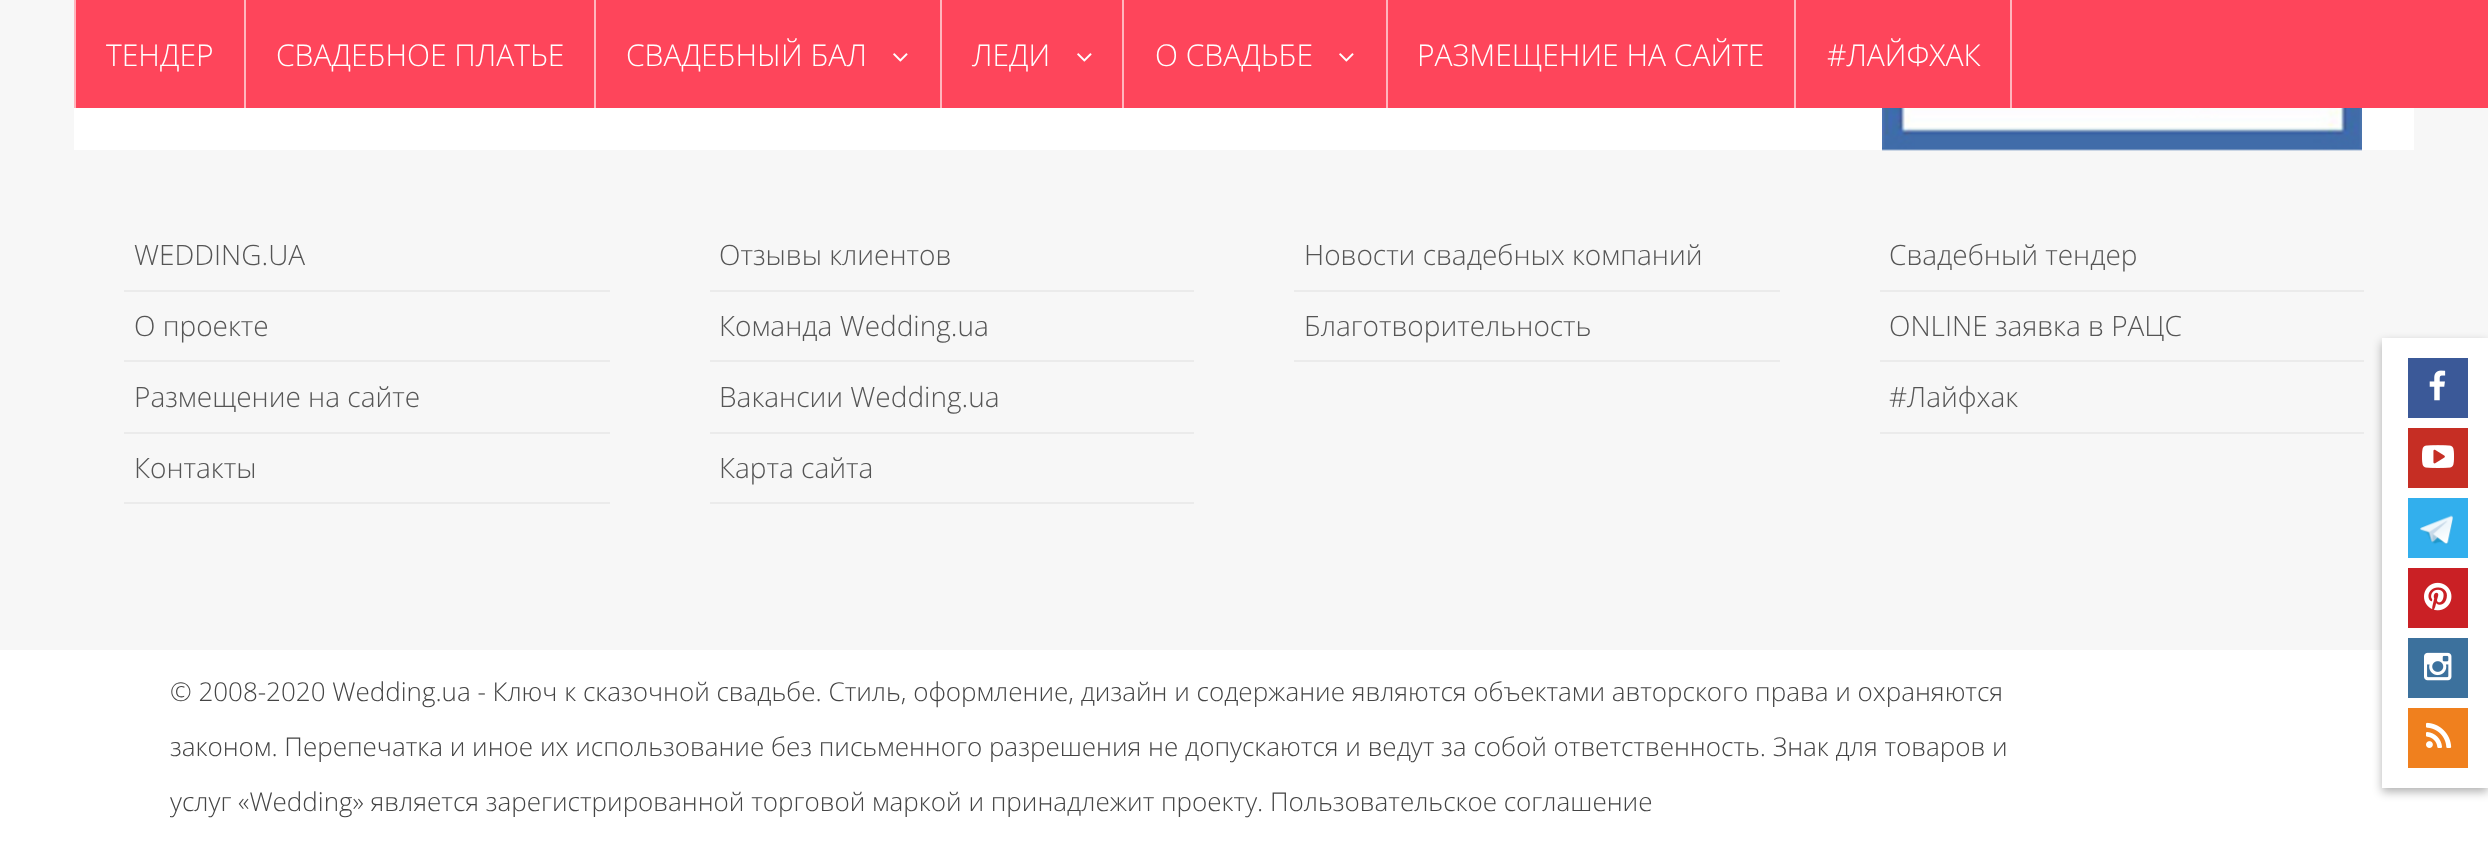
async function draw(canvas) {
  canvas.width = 2488;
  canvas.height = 843;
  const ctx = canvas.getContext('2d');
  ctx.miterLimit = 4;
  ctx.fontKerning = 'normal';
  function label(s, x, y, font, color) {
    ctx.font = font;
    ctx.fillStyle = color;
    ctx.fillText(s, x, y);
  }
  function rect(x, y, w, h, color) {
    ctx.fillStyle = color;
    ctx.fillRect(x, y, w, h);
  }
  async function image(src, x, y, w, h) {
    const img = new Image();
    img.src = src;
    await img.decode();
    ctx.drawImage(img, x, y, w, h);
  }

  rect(0, 0, 2488, 843, '#f7f7f7');
  rect(76, 0, 2412, 108, '#fe455b');
  rect(1122, 0, 2, 108, '#ffb5bd');
  rect(940, 0, 2, 108, '#ffb5bd');
  rect(594, 0, 2, 108, '#ffb5bd');
  rect(74, 0, 2, 108, '#ffb5bd');
  label('ТЕНДЕР', 106, 66, '300 30px Open Sans', '#fff');
  rect(244, 0, 2, 108, '#ffb5bd');
  label('СВАДЕБНОЕ ПЛАТЬЕ', 276, 66, '300 30px Open Sans', '#fff');
  label('СВАДЕБНЫЙ БАЛ', 626, 66, '300 30px Open Sans', '#fff');
  await image('assets/img1.png', 893, 53, 15, 9);
  label('ЛЕДИ', 972, 66, '300 30px Open Sans', '#fff');
  await image('assets/img1.png', 1077, 53, 15, 9);
  label('О СВАДЬБЕ', 1155, 66, '300 30px Open Sans', '#fff');
  await image('assets/img1.png', 1339, 53, 15, 9);
  rect(1386, 0, 2, 108, '#ffb5bd');
  label('РАЗМЕЩЕНИЕ НА САЙТЕ', 1417, 66, '300 30px Open Sans', '#fff');
  rect(2010, 0, 2, 108, '#ffb5bd');
  rect(1794, 0, 2, 108, '#ffb5bd');
  label('#ЛАЙФХАК', 1827, 66, '300 30px Open Sans', '#fff');
  rect(0, 650, 2488, 193, '#fff');
  ctx.fillStyle = '#0000004d';
  ctx.filter = 'blur(5px)';
  ctx.beginPath();
  ctx.rect(2382, 342, 106, 450);
  ctx.fill();
  ctx.filter = 'none';
  rect(2382, 338, 106, 450, '#fff');
  rect(2408, 358, 60, 60, '#3b5998');
  await image('assets/img2.png', 2429, 370, 17, 31);
  rect(2408, 428, 60, 60, '#c62e24');
  await image('assets/img3.png', 2422, 445, 32, 23);
  rect(2408, 498, 60, 60, '#32afed');
  await image('assets/img4.png', 2420, 515, 33, 30);
  rect(2408, 568, 60, 60, '#ca2025');
  await image('assets/img5.png', 2424, 582, 28, 29);
  rect(2408, 638, 60, 60, '#3c719d');
  await image('assets/img6.png', 2424, 652, 28, 29);
  rect(2408, 708, 60, 60, '#f0801e');
  await image('assets/img7.png', 2426, 722, 26, 26);
  rect(74, 108, 2340, 42, '#fff');
  await image('assets/img8.png', 1882, 108, 480, 43);
  rect(124, 290, 486, 2, '#ebebeb');
  label('WEDDING.UA', 134, 265, '300 28px Open Sans', '#555');
  rect(124, 360, 486, 2, '#ebebeb');
  label('О проекте', 134, 336, '300 28px Open Sans', '#555');
  rect(124, 432, 486, 2, '#ebebeb');
  label('Размещение на сайте', 134, 407, '300 28px Open Sans', '#555');
  rect(124, 502, 486, 2, '#ebebeb');
  label('Контакты', 134, 478, '300 28px Open Sans', '#555');
  rect(710, 290, 484, 2, '#ebebeb');
  label('Отзывы клиентов', 719, 265, '300 28px Open Sans', '#555');
  rect(710, 360, 484, 2, '#ebebeb');
  label('Команда Wedding.ua', 719, 336, '300 28px Open Sans', '#555');
  rect(710, 432, 484, 2, '#ebebeb');
  label('Вакансии Wedding.ua', 719, 407, '300 28px Open Sans', '#555');
  rect(710, 502, 484, 2, '#ebebeb');
  label('Карта сайта', 719, 478, '300 28px Open Sans', '#555');
  rect(1294, 290, 486, 2, '#ebebeb');
  label('Новости свадебных компаний', 1304, 265, '300 28px Open Sans', '#555');
  rect(1294, 360, 486, 2, '#ebebeb');
  label('Благотворительность', 1304, 336, '300 28px Open Sans', '#555');
  rect(1880, 290, 484, 2, '#ebebeb');
  label('Свадебный тендер', 1889, 265, '300 28px Open Sans', '#555');
  rect(1880, 360, 484, 2, '#ebebeb');
  label('ONLINE заявка в РАЦС', 1889, 336, '300 28px Open Sans', '#555');
  rect(1880, 432, 484, 2, '#ebebeb');
  label('#Лайфхак', 1889, 407, '300 28px Open Sans', '#555');
  label('© 2008-2020 Wedding.ua - Ключ к сказочной свадьбе. Стиль, оформление, дизайн и содержание являются объектами авторского права и охраняются', 170, 701, '300 26px Open Sans', '#444');
  label('законом. Перепечатка и иное их использование без письменного разрешения не допускаются и ведут за собой ответственность. Знак для товаров и', 170, 756, '300 26px Open Sans', '#444');
  label('услуг «Wedding» является зарегистрированной торговой маркой и принадлежит проекту. Пользовательское соглашение', 170, 811, '300 26px Open Sans', '#444');
}

draw(document.querySelector('canvas'));
